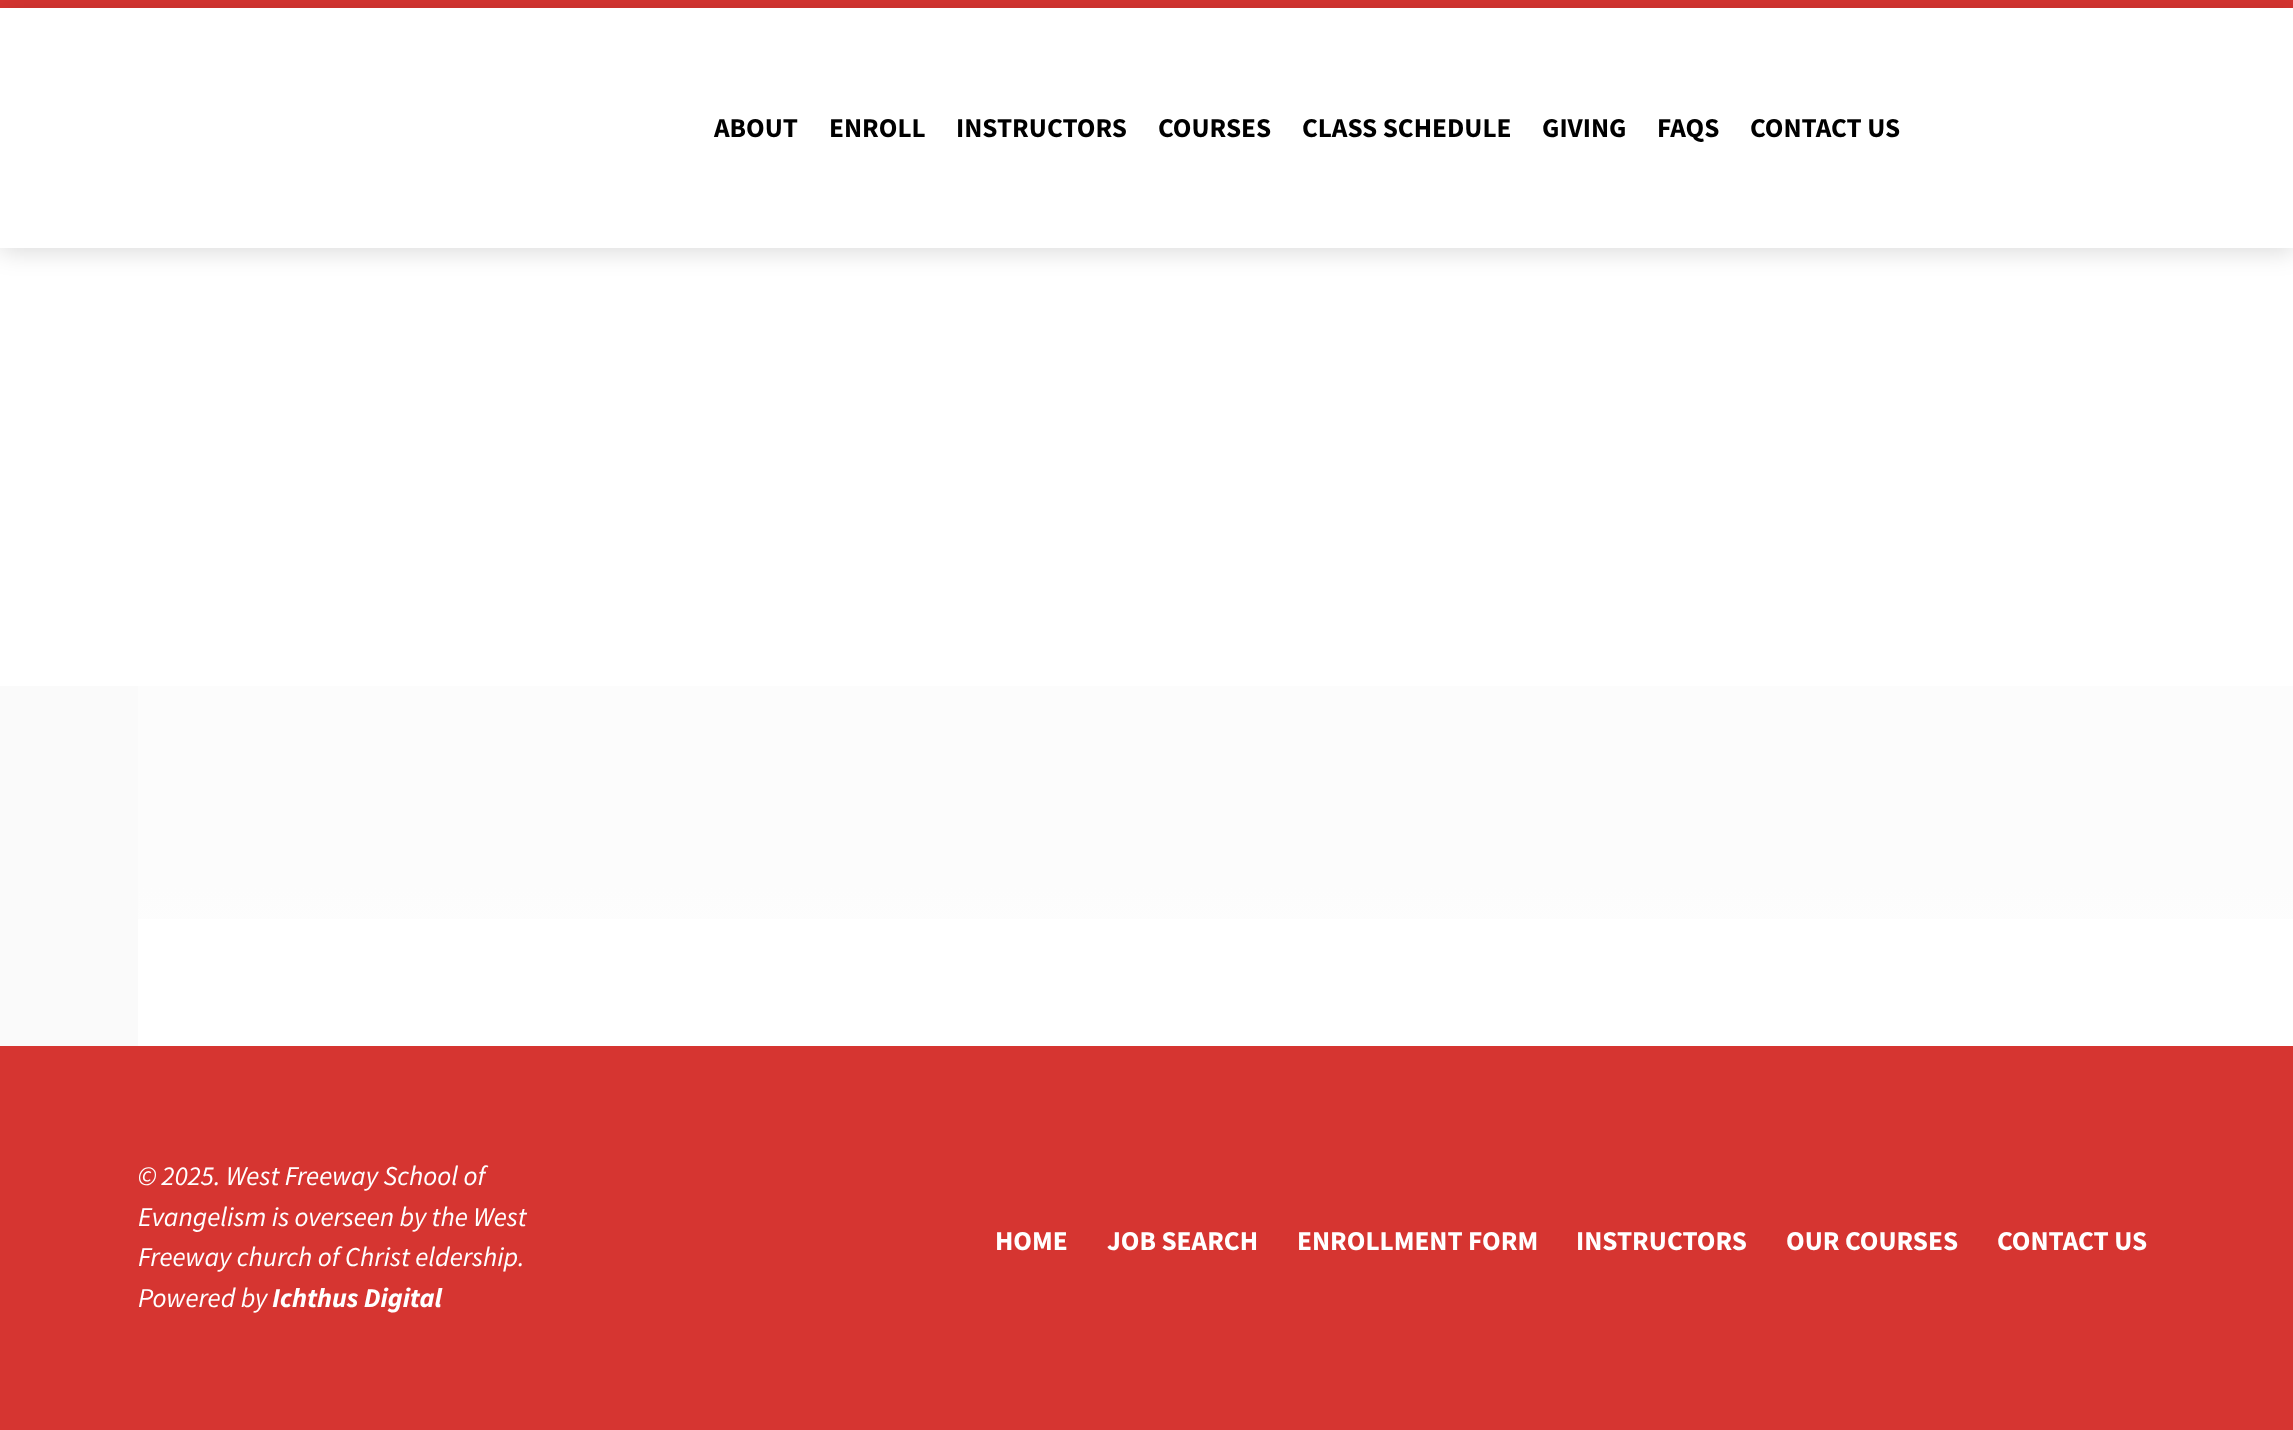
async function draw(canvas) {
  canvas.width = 2293;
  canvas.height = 1430;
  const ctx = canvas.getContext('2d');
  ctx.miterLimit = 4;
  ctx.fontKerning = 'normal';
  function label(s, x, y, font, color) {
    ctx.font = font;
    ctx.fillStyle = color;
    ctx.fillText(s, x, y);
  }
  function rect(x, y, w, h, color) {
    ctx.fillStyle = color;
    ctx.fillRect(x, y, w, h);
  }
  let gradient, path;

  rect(0, 0, 2293, 1430, '#fff');
  rect(0, 0, 2293, 8, '#d63531');
  ctx.save();
  path = new Path2D('M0 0H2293V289H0ZM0 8H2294V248H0Z');
  ctx.clip(path, 'evenodd');
  ctx.fillStyle = '#00000024';
  ctx.filter = 'blur(12px)';
  ctx.beginPath();
  ctx.rect(0, 12, 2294, 240);
  ctx.fill();
  ctx.filter = 'none';
  ctx.restore();
  label('ABOUT', 714, 137, 'bold 27.25px Source Sans Pro', '#000');
  label('ENROLL', 829, 137, 'bold 27.25px Source Sans Pro', '#000');
  label('INSTRUCTORS', 956, 137, 'bold 27.25px Source Sans Pro', '#000');
  label('COURSES', 1158, 137, 'bold 27.25px Source Sans Pro', '#000');
  label('CLASS SCHEDULE', 1302, 137, 'bold 27.25px Source Sans Pro', '#000');
  label('GIVING', 1542, 137, 'bold 27.25px Source Sans Pro', '#000');
  label('FAQS', 1657, 137, 'bold 27.25px Source Sans Pro', '#000');
  label('CONTACT US', 1750, 137, 'bold 27.25px Source Sans Pro', '#000');
  rect(0, 686, 138, 360, '#fafafa');
  gradient = ctx.createLinearGradient(1285, 686, 1285, 1086);
  gradient.addColorStop(0.5, '#fcfcfc');
  gradient.addColorStop(1, '#fff');
  ctx.fillStyle = gradient;
  ctx.fillRect(138, 686, 2155, 233);
  rect(0, 1046, 2293, 384, '#d63531');
  label('© 2025. West Freeway School of', 138, 1185, 'italic 27.25px Source Sans Pro', '#fff');
  label('Evangelism is overseen by the West', 138, 1226, 'italic 27.25px Source Sans Pro', '#fff');
  label('Freeway church of Christ eldership.', 138, 1266, 'italic 27.25px Source Sans Pro', '#fff');
  label('Powered by', 138, 1307, 'italic 27.25px Source Sans Pro', '#fff');
  label('Ichthus Digital', 272, 1307, 'italic bold 27.25px Source Sans Pro', '#fff');
  label('HOME', 995, 1250, 'bold 27.25px Source Sans Pro', '#fff');
  label('JOB SEARCH', 1107, 1250, 'bold 27.25px Source Sans Pro', '#fff');
  label('ENROLLMENT FORM', 1297, 1250, 'bold 27.25px Source Sans Pro', '#fff');
  label('INSTRUCTORS', 1576, 1250, 'bold 27.25px Source Sans Pro', '#fff');
  label('OUR COURSES', 1786, 1250, 'bold 27.25px Source Sans Pro', '#fff');
  label('CONTACT US', 1997, 1250, 'bold 27.25px Source Sans Pro', '#fff');
}

draw(document.querySelector('canvas'));
